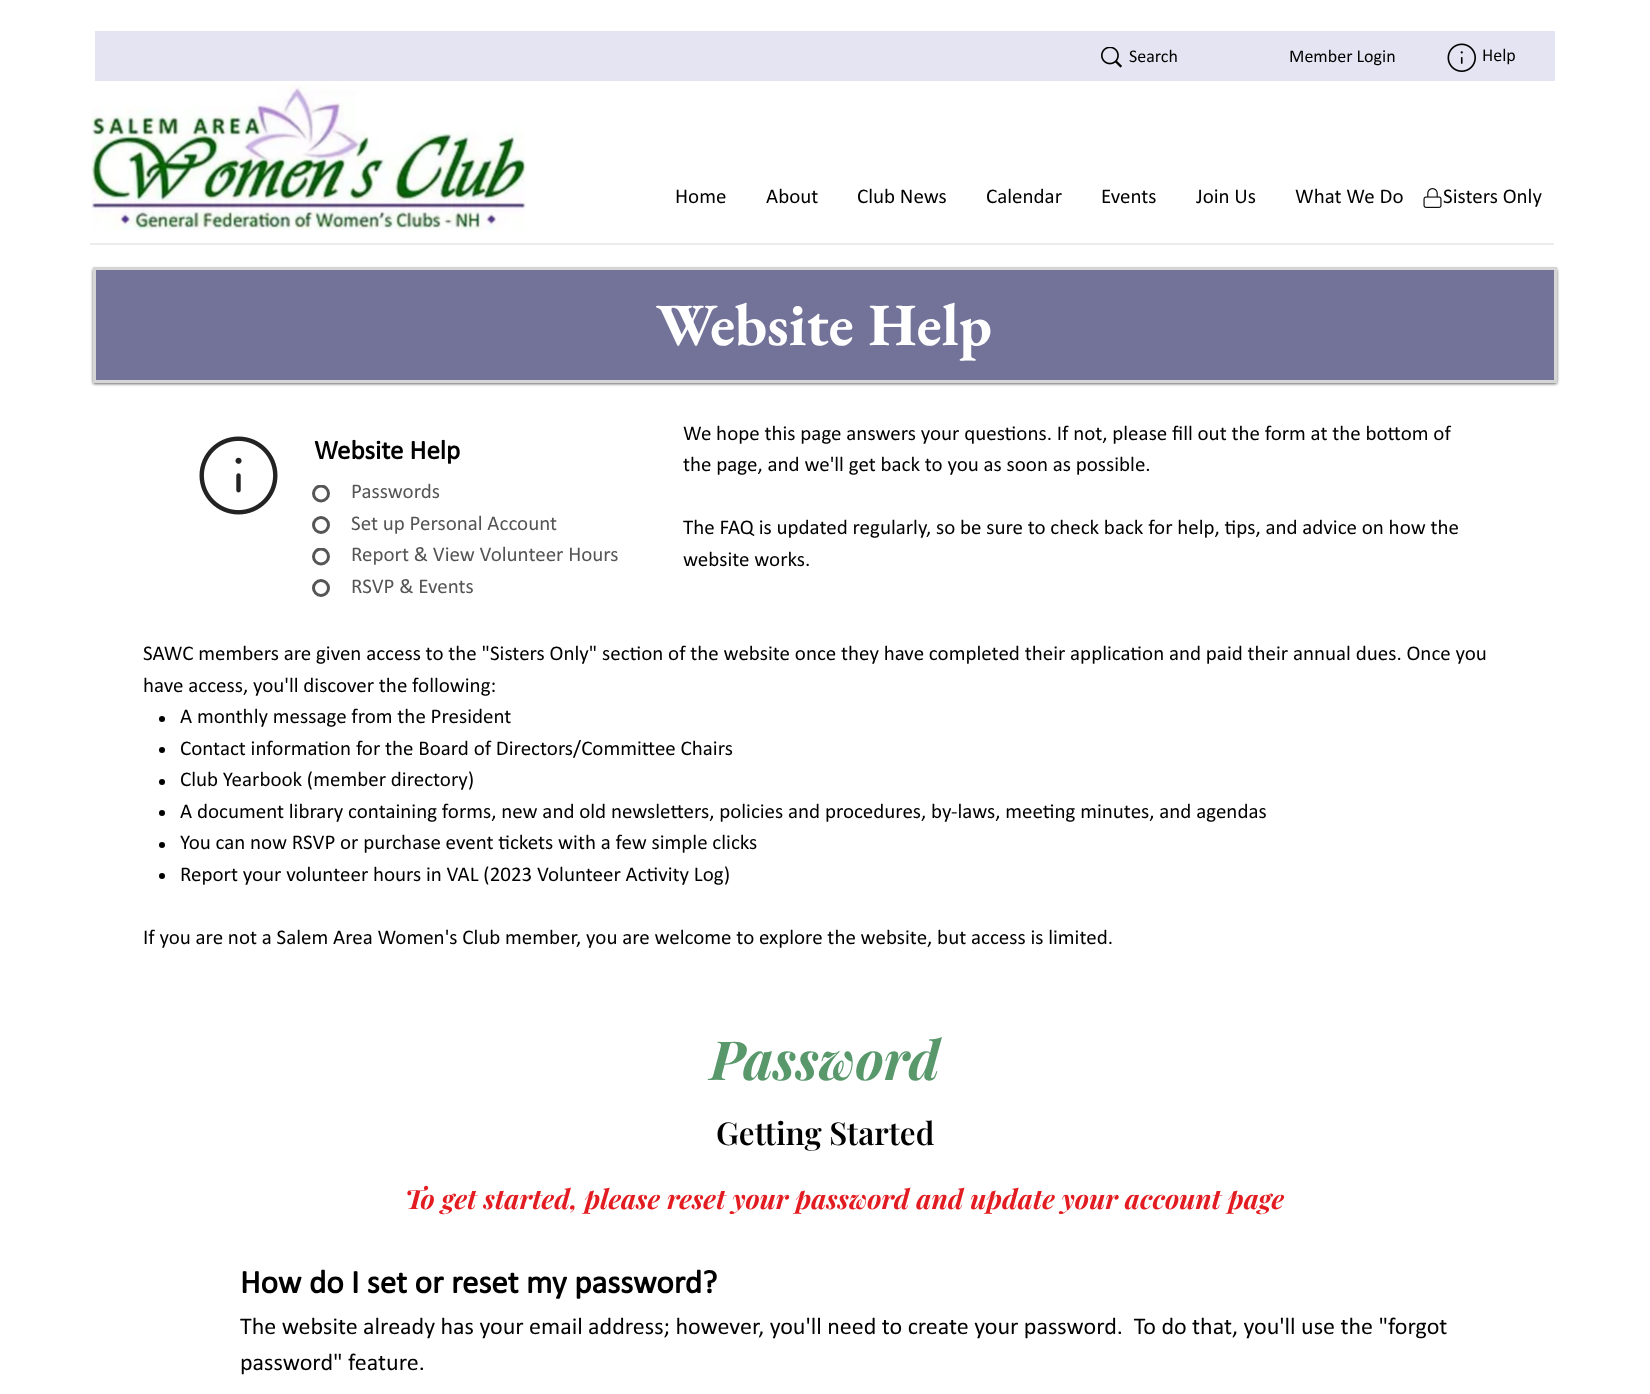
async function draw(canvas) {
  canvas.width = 1650;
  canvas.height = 1394;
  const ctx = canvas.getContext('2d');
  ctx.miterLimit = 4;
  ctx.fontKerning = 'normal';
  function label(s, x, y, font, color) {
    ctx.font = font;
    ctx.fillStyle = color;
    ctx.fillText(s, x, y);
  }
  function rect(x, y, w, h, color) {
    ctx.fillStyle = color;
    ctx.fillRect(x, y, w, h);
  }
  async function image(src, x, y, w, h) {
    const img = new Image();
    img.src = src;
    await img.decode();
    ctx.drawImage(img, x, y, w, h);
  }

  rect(0, 0, 1650, 1394, '#fff');
  rect(95, 31, 1460, 50, '#e4e4f3');
  await image('assets/img1.png', 1101, 47, 21, 21);
  label('Search', 1129, 62, '18px Calibri', '#000');
  label('Member Login', 1289, 62, '18px Calibri', '#000');
  await image('assets/img2.png', 1447, 43, 29, 29);
  label('Help', 1482, 61, '18px Calibri', '#000');
  await image('assets/img3.png', 91, 85, 435, 145);
  label('Home', 675, 203, '21px Calibri', '#000');
  label('About', 766, 203, '21px Calibri', '#000');
  label('Club News', 857, 203, '21px Calibri', '#000');
  label('Calendar', 986, 203, '21px Calibri', '#000');
  label('Events', 1101, 203, '21px Calibri', '#000');
  label('Join Us', 1196, 203, '21px Calibri', '#000');
  label('What We Do', 1295, 203, '21px Calibri', '#000');
  label('Sisters Only', 1443, 203, '21px Calibri', '#000');
  await image('assets/img4.png', 1423, 188, 19, 20);
  rect(90, 243, 1464, 2, '#ececec');
  ctx.fillStyle = '#00000099';
  ctx.filter = 'blur(1.5px)';
  ctx.beginPath();
  ctx.roundRect(93, 269, 1464, 115, 1.5);
  ctx.fill();
  ctx.filter = 'none';
  ctx.fillStyle = '#737399';
  ctx.beginPath();
  ctx.rect(94.5, 268.5, 1461, 113);
  ctx.fill();
  ctx.strokeStyle = '#d5d5d5';
  ctx.lineWidth = 3;
  ctx.stroke();
  label('Website Help', 656, 345, 'bold 60px EB Garamond', '#fff');
  await image('assets/img5.png', 199, 436, 79, 79);
  label('Website Help', 314, 459, 'bold 27px Calibri', '#000');
  label('We hope this page answers your questions. If not, please fill out the form at the bottom of', 683, 440, '21px Calibri', '#000');
  label('the page, and we\'ll get back to you as soon as possible.', 683, 471, '21px Calibri', '#000');
  label('The FAQ is updated regularly, so be sure to check back for help, tips, and advice on how the', 683, 534, '21px Calibri', '#000');
  label('website works.', 683, 566, '21px Calibri', '#000');
  ctx.save();
  ctx.beginPath();
  ctx.rect(312, 485, 18, 18);
  ctx.clip();
  ctx.beginPath();
  ctx.arc(321, 493.5, 7.5, 0, 2 * Math.PI);
  ctx.strokeStyle = '#555';
  ctx.stroke();
  ctx.restore();
  label('Passwords', 351, 498, '21px Calibri', '#555');
  ctx.beginPath();
  ctx.arc(321, 525, 7.5, 0, 2 * Math.PI);
  ctx.strokeStyle = '#555';
  ctx.stroke();
  label('Set up Personal Account', 351, 530, '21px Calibri', '#555');
  ctx.save();
  ctx.beginPath();
  ctx.rect(312, 548, 18, 18);
  ctx.clip();
  ctx.beginPath();
  ctx.arc(321, 556.5, 7.5, 0, 2 * Math.PI);
  ctx.stroke();
  ctx.restore();
  label('Report & View Volunteer Hours', 351, 561, '21px Calibri', '#555');
  ctx.beginPath();
  ctx.arc(321, 588, 7.5, 0, 2 * Math.PI);
  ctx.stroke();
  label('RSVP & Events', 351, 593, '21px Calibri', '#555');
  label('SAWC members are given access to the "Sisters Only" section of the website once they have completed their application and paid their annual dues. Once you', 143, 660, '21px Calibri', '#000');
  label('have access, you\'ll discover the following:', 143, 692, '21px Calibri', '#000');
  ctx.beginPath();
  ctx.arc(162, 719, 3, 0, 2 * Math.PI);
  ctx.fill();
  label('A monthly message from the President', 180, 723, '21px Calibri', '#000');
  ctx.beginPath();
  ctx.arc(162, 750, 3, 0, 2 * Math.PI);
  ctx.fill();
  label('Contact information for the Board of Directors/Committee Chairs', 180, 755, '21px Calibri', '#000');
  ctx.beginPath();
  ctx.arc(162, 782, 3, 0, 2 * Math.PI);
  ctx.fill();
  label('Club Yearbook (member directory)', 180, 786, '21px Calibri', '#000');
  ctx.beginPath();
  ctx.arc(162, 813, 3, 0, 2 * Math.PI);
  ctx.fill();
  label('A document library containing forms, new and old newsletters, policies and procedures, by-laws, meeting minutes, and agendas', 180, 818, '21px Calibri', '#000');
  ctx.beginPath();
  ctx.arc(162, 845, 3, 0, 2 * Math.PI);
  ctx.fill();
  label('You can now RSVP or purchase event tickets with a few simple clicks', 180, 849, '21px Calibri', '#000');
  ctx.beginPath();
  ctx.arc(162, 876, 3, 0, 2 * Math.PI);
  ctx.fill();
  label('Report your volunteer hours in VAL (2023 Volunteer Activity Log)', 180, 881, '21px Calibri', '#000');
  label('If you are not a Salem Area Women\'s Club member, you are welcome to explore the website, but access is limited.', 143, 944, '21px Calibri', '#000');
  label('Password', 710, 1080, 'italic bold 54px Playfair Display', '#58986b');
  label('Getting Started', 716, 1145, '600 31.5px Playfair Display', '#000');
  label('To get started, please reset your password and update your account page', 405, 1209, 'italic bold 27px Playfair Display', '#e21c21');
  label('How do I set or reset my password?', 240, 1293, 'bold 33px Calibri', '#000');
  label('The website already has your email address; however, you\'ll need to create your password.  To do that, you\'ll use the "forgot', 240, 1334, '24px Calibri', '#000');
  label('password" feature.', 240, 1370, '24px Calibri', '#000');
}

draw(document.querySelector('canvas'));
